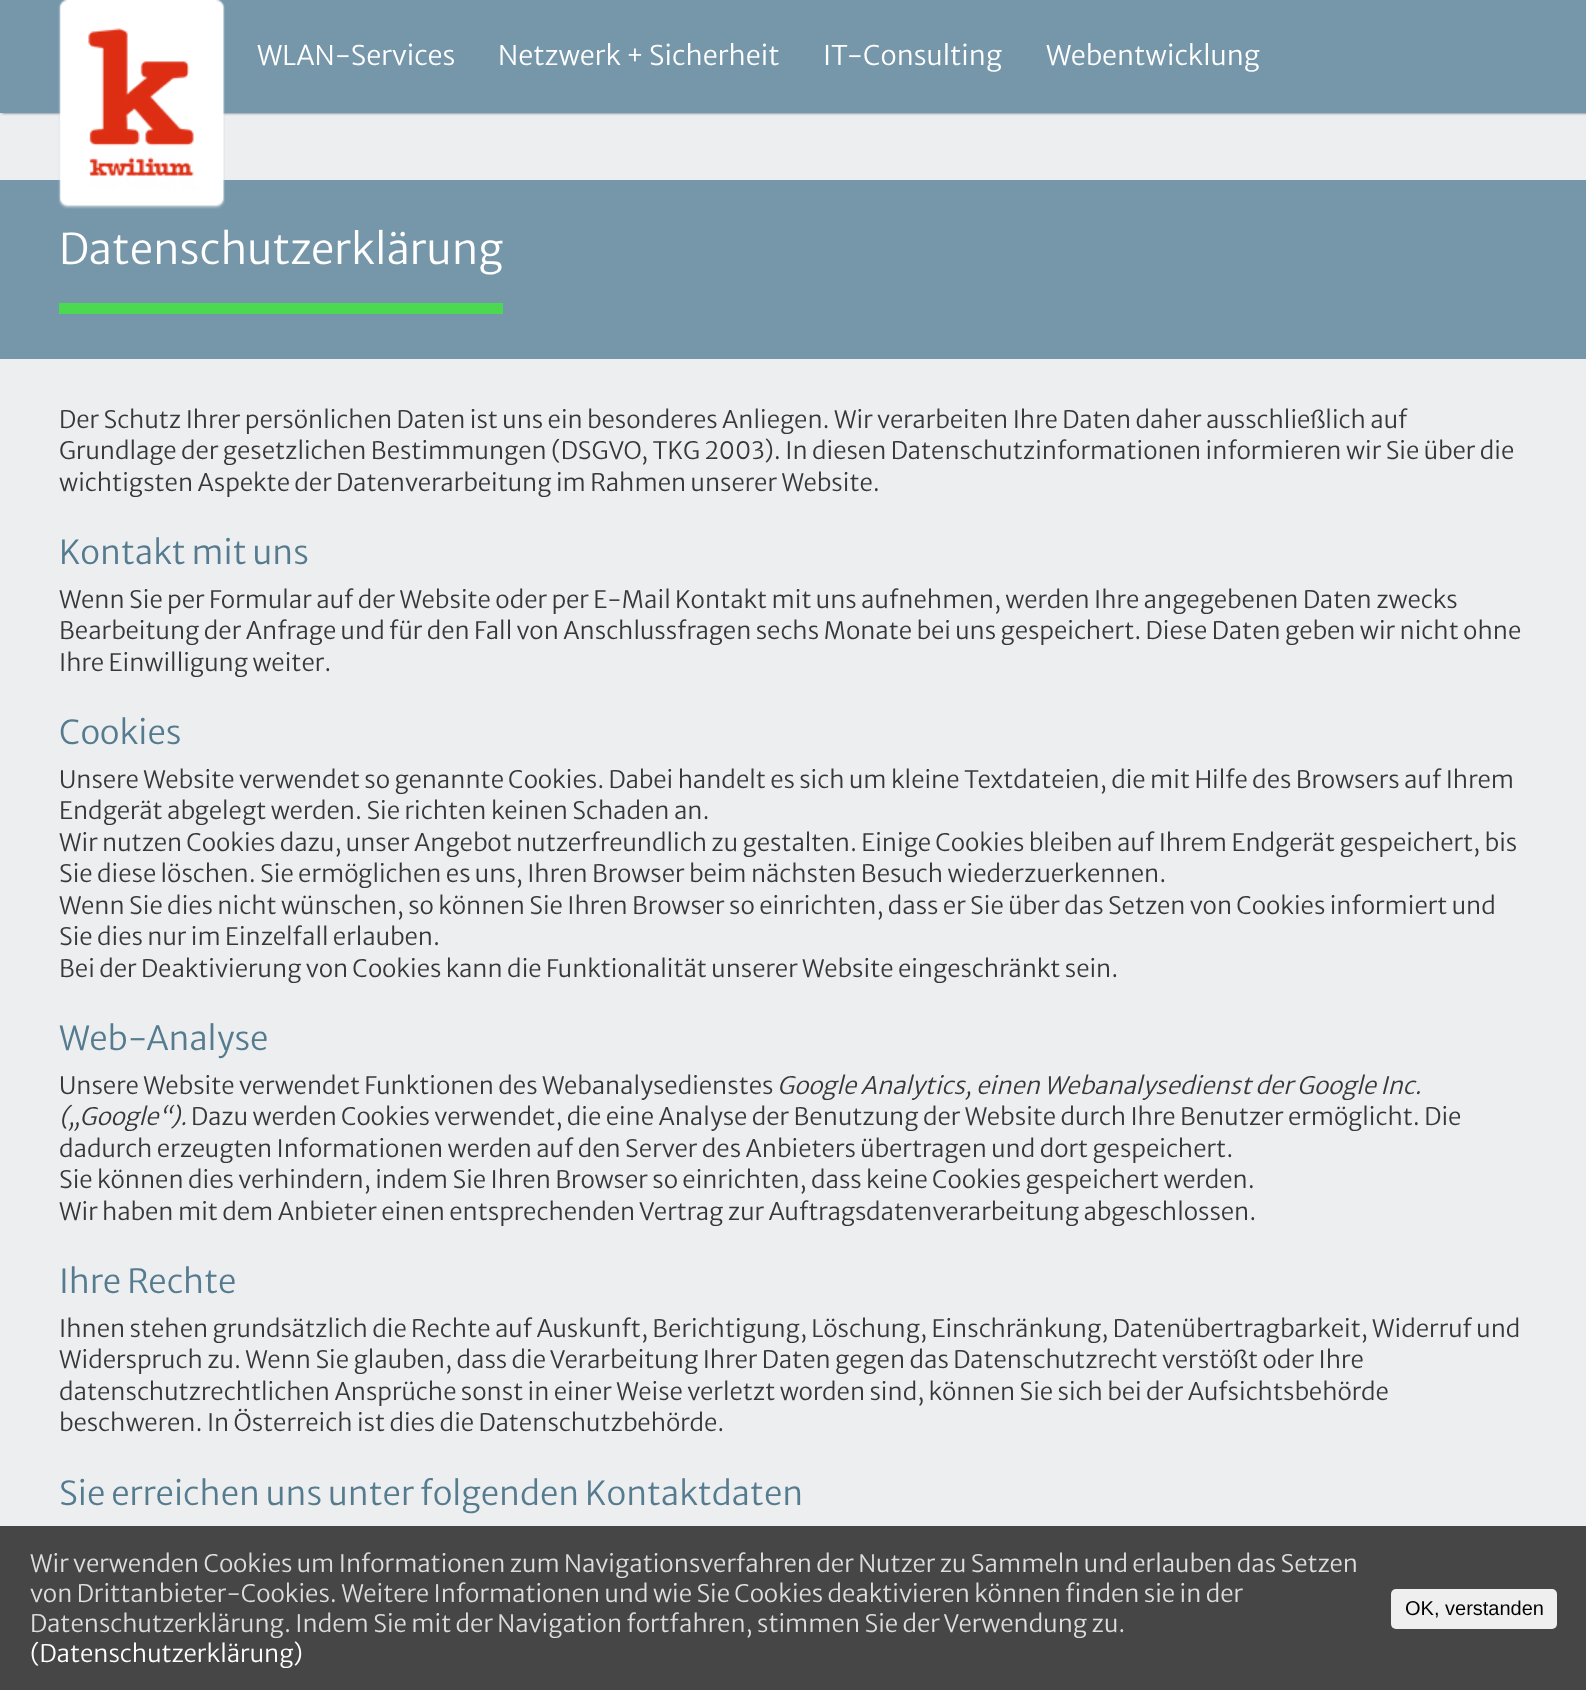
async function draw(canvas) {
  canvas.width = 1586;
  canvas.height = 1690;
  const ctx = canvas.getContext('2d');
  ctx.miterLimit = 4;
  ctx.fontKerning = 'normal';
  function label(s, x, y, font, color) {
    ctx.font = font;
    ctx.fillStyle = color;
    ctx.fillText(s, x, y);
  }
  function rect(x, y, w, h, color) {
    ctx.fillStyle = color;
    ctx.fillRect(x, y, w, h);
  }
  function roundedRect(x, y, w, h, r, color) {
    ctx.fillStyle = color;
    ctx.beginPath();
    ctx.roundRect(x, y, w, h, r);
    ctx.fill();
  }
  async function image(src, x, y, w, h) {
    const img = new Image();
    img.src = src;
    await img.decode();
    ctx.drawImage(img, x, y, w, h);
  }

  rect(0, 0, 1586, 1690, '#edeef0');
  ctx.fillStyle = '#475c69';
  ctx.filter = 'blur(1.5px)';
  ctx.beginPath();
  ctx.rect(2, 0, 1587, 113);
  ctx.fill();
  ctx.filter = 'none';
  rect(0, 0, 1586, 113, '#7697aa');
  rect(0, 180, 1586, 179, '#7697aa');
  await image('assets/img1.png', 58, 0, 167, 209);
  label('WLAN-Services', 257, 65, '300 27px Merriweather Sans', '#fff');
  label('Netzwerk + Sicherheit', 498, 65, '300 27px Merriweather Sans', '#fff');
  label('IT-Consulting', 823, 65, '300 27px Merriweather Sans', '#fff');
  label('Webentwicklung', 1046, 65, '300 27px Merriweather Sans', '#fff');
  rect(59, 303, 444, 11, '#4cd952');
  label('Datenschutzerklärung', 59, 264, '300 42px Merriweather Sans', '#fff');
  label('Der Schutz Ihrer persönlichen Daten ist uns ein besonderes Anliegen. Wir verarbeiten Ihre Daten daher ausschließlich auf', 59, 428, '300 24px Merriweather Sans', '#373839');
  label('Grundlage der gesetzlichen Bestimmungen (DSGVO, TKG 2003). In diesen Datenschutzinformationen informieren wir Sie über die', 59, 459, '300 24px Merriweather Sans', '#373839');
  label('wichtigsten Aspekte der Datenverarbeitung im Rahmen unserer Website.', 59, 491, '300 24px Merriweather Sans', '#373839');
  label('Kontakt mit uns', 59, 564, '300 33px Merriweather Sans', '#557b8f');
  label('Wenn Sie per Formular auf der Website oder per E-Mail Kontakt mit uns aufnehmen, werden Ihre angegebenen Daten zwecks', 59, 608, '300 24px Merriweather Sans', '#373839');
  label('Bearbeitung der Anfrage und für den Fall von Anschlussfragen sechs Monate bei uns gespeichert. Diese Daten geben wir nicht ohne', 59, 639, '300 24px Merriweather Sans', '#373839');
  label('Ihre Einwilligung weiter.', 59, 671, '300 24px Merriweather Sans', '#373839');
  label('Cookies', 59, 744, '300 33px Merriweather Sans', '#557b8f');
  label('Unsere Website verwendet so genannte Cookies. Dabei handelt es sich um kleine Textdateien, die mit Hilfe des Browsers auf Ihrem', 59, 788, '300 24px Merriweather Sans', '#373839');
  label('Endgerät abgelegt werden. Sie richten keinen Schaden an.', 59, 819, '300 24px Merriweather Sans', '#373839');
  label('Wir nutzen Cookies dazu, unser Angebot nutzerfreundlich zu gestalten. Einige Cookies bleiben auf Ihrem Endgerät gespeichert, bis', 59, 851, '300 24px Merriweather Sans', '#373839');
  label('Sie diese löschen. Sie ermöglichen es uns, Ihren Browser beim nächsten Besuch wiederzuerkennen.', 59, 882, '300 24px Merriweather Sans', '#373839');
  label('Wenn Sie dies nicht wünschen, so können Sie Ihren Browser so einrichten, dass er Sie über das Setzen von Cookies informiert und', 59, 914, '300 24px Merriweather Sans', '#373839');
  label('Sie dies nur im Einzelfall erlauben.', 59, 945, '300 24px Merriweather Sans', '#373839');
  label('Bei der Deaktivierung von Cookies kann die Funktionalität unserer Website eingeschränkt sein.', 59, 977, '300 24px Merriweather Sans', '#373839');
  label('Web-Analyse', 59, 1050, '300 33px Merriweather Sans', '#557b8f');
  label('Unsere Website verwendet Funktionen des Webanalysedienstes', 59, 1094, '300 24px Merriweather Sans', '#373839');
  label('Google Analytics, einen Webanalysedienst der Google Inc.', 777, 1094, 'italic 300 24px Merriweather Sans', '#373839');
  label('(„Google“).', 59, 1125, 'italic 300 24px Merriweather Sans', '#373839');
  label('Dazu werden Cookies verwendet, die eine Analyse der Benutzung der Website durch Ihre Benutzer ermöglicht. Die', 191, 1125, '300 24px Merriweather Sans', '#373839');
  label('dadurch erzeugten Informationen werden auf den Server des Anbieters übertragen und dort gespeichert.', 59, 1157, '300 24px Merriweather Sans', '#373839');
  label('Sie können dies verhindern, indem Sie Ihren Browser so einrichten, dass keine Cookies gespeichert werden.', 59, 1188, '300 24px Merriweather Sans', '#373839');
  label('Wir haben mit dem Anbieter einen entsprechenden Vertrag zur Auftragsdatenverarbeitung abgeschlossen.', 59, 1220, '300 24px Merriweather Sans', '#373839');
  label('Ihre Rechte', 59, 1293, '300 33px Merriweather Sans', '#557b8f');
  label('Ihnen stehen grundsätzlich die Rechte auf Auskunft, Berichtigung, Löschung, Einschränkung, Datenübertragbarkeit, Widerruf und', 59, 1337, '300 24px Merriweather Sans', '#373839');
  label('Widerspruch zu. Wenn Sie glauben, dass die Verarbeitung Ihrer Daten gegen das Datenschutzrecht verstößt oder Ihre', 59, 1368, '300 24px Merriweather Sans', '#373839');
  label('datenschutzrechtlichen Ansprüche sonst in einer Weise verletzt worden sind, können Sie sich bei der Aufsichtsbehörde', 59, 1400, '300 24px Merriweather Sans', '#373839');
  label('beschweren. In Österreich ist dies die Datenschutzbehörde.', 59, 1431, '300 24px Merriweather Sans', '#373839');
  label('Sie erreichen uns unter folgenden Kontaktdaten', 59, 1505, '300 33px Merriweather Sans', '#557b8f');
  rect(0, 1526, 1586, 164, '#464646');
  label('Wir verwenden Cookies um Informationen zum Navigationsverfahren der Nutzer zu Sammeln und erlauben das Setzen', 30, 1572, '300 24px Merriweather Sans', '#ddd');
  label('von Drittanbieter-Cookies. Weitere Informationen und wie Sie Cookies deaktivieren können finden sie in der', 30, 1602, '300 24px Merriweather Sans', '#ddd');
  label('Datenschutzerklärung. Indem Sie mit der Navigation fortfahren, stimmen Sie der Verwendung zu.', 30, 1632, '300 24px Merriweather Sans', '#ddd');
  label('(Datenschutzerklärung)', 30, 1662, '300 24px Merriweather Sans', '#fff');
  roundedRect(1391, 1589, 166, 40, 5, '#efefef');
  label('OK, verstanden', 1405, 1615, '20px Liberation Sans', '#000');
}

draw(document.querySelector('canvas'));
